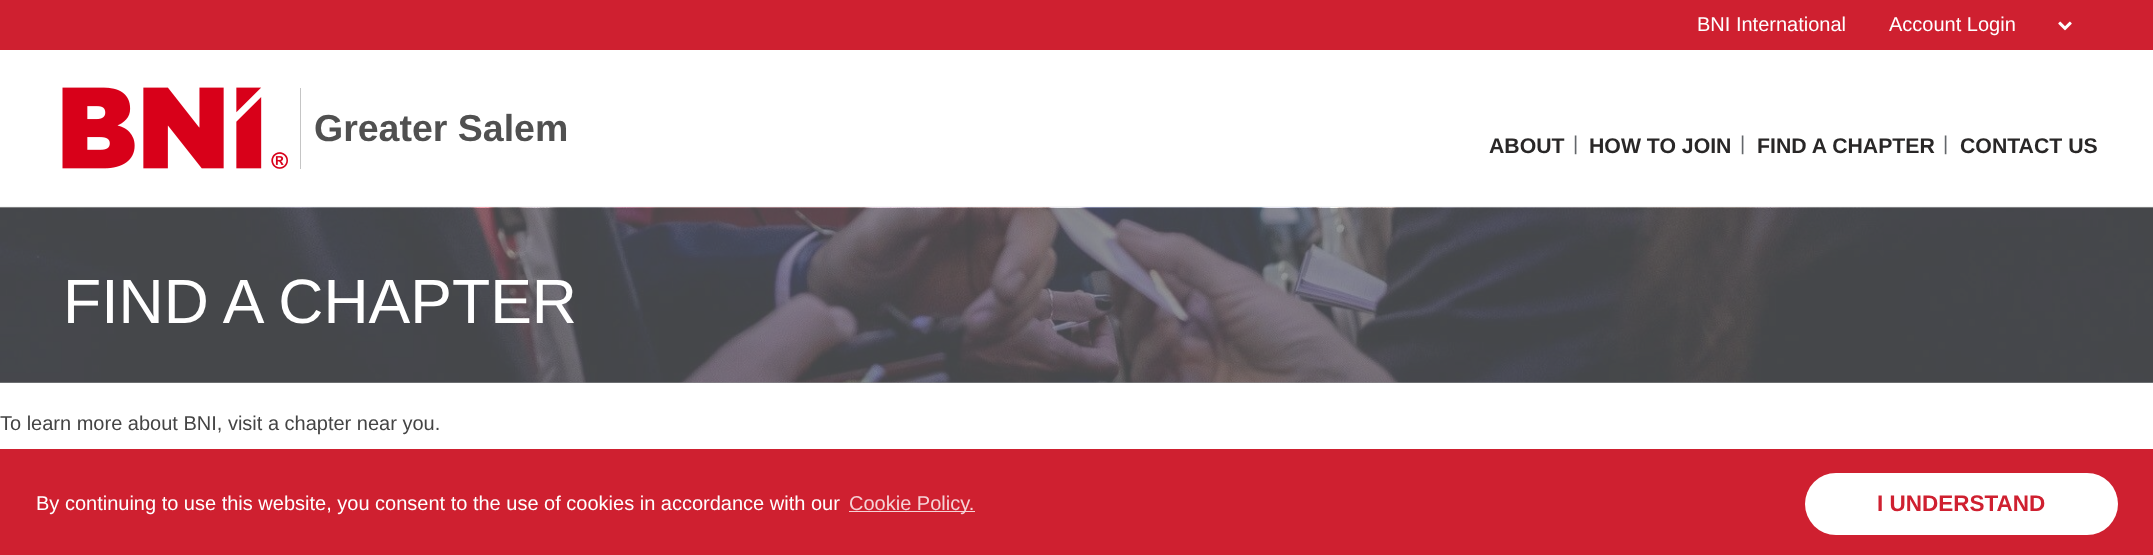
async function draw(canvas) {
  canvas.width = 2153;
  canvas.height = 555;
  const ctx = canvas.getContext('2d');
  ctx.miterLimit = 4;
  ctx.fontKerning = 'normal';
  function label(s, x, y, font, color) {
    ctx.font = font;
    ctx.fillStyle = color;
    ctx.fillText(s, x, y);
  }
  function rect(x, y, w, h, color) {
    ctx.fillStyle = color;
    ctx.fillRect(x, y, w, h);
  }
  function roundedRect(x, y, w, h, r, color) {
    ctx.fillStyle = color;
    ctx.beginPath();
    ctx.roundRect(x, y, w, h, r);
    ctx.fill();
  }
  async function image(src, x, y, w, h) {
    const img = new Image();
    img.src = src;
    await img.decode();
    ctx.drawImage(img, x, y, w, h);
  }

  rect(0, 0, 2153, 555, '#fff');
  rect(0, 382, 2153, 1, '#929497');
  rect(0, 0, 2153, 50, '#cf2030');
  label('BNI International', 1697, 31, '20px Liberation Sans', '#fff');
  label('Account Login', 1889, 31, '20px Liberation Sans', '#fff');
  await image('assets/img1.png', 2058, 21, 14, 10);
  rect(0, 206, 2153, 1, '#f5f7f7');
  await image('assets/img2.png', 62, 87, 226, 82);
  rect(300, 88, 1, 81, '#c5c5c5');
  label('Greater Salem', 314, 141, 'bold 37.5px Liberation Sans', '#505050');
  label('ABOUT', 1489, 153, 'bold 21.25px Liberation Sans', '#292727');
  label('|', 1573, 150, '20px Liberation Sans', '#63666a');
  label('HOW TO JOIN', 1589, 153, 'bold 21.25px Liberation Sans', '#292727');
  label('|', 1740, 150, '20px Liberation Sans', '#63666a');
  label('FIND A CHAPTER', 1757, 153, 'bold 21.25px Liberation Sans', '#292727');
  label('|', 1943, 150, '20px Liberation Sans', '#63666a');
  label('CONTACT US', 1960, 153, 'bold 21.25px Liberation Sans', '#292727');
  await image('assets/img3.png', 0, 207, 2153, 176);
  label('FIND A CHAPTER', 63, 323, '62.5px Liberation Sans', '#fff');
  label('To learn more about BNI, visit a chapter near you.', 0, 430, '20px Liberation Sans', '#444');
  rect(0, 449, 2153, 106, '#cf2030');
  label('By continuing to use this website, you consent to the use of cookies in accordance with our', 36, 510, '20px Liberation Sans', '#fff');
  rect(849, 511, 126, 1, '#f5d2d6');
  label('Cookie Policy.', 849, 510, '20px Liberation Sans', '#f5d2d6');
  roundedRect(1805, 473, 313, 62, 31, '#fff');
  label('I UNDERSTAND', 1877, 511, 'bold 22.5px Liberation Sans', '#cf2030');
}

draw(document.querySelector('canvas'));
